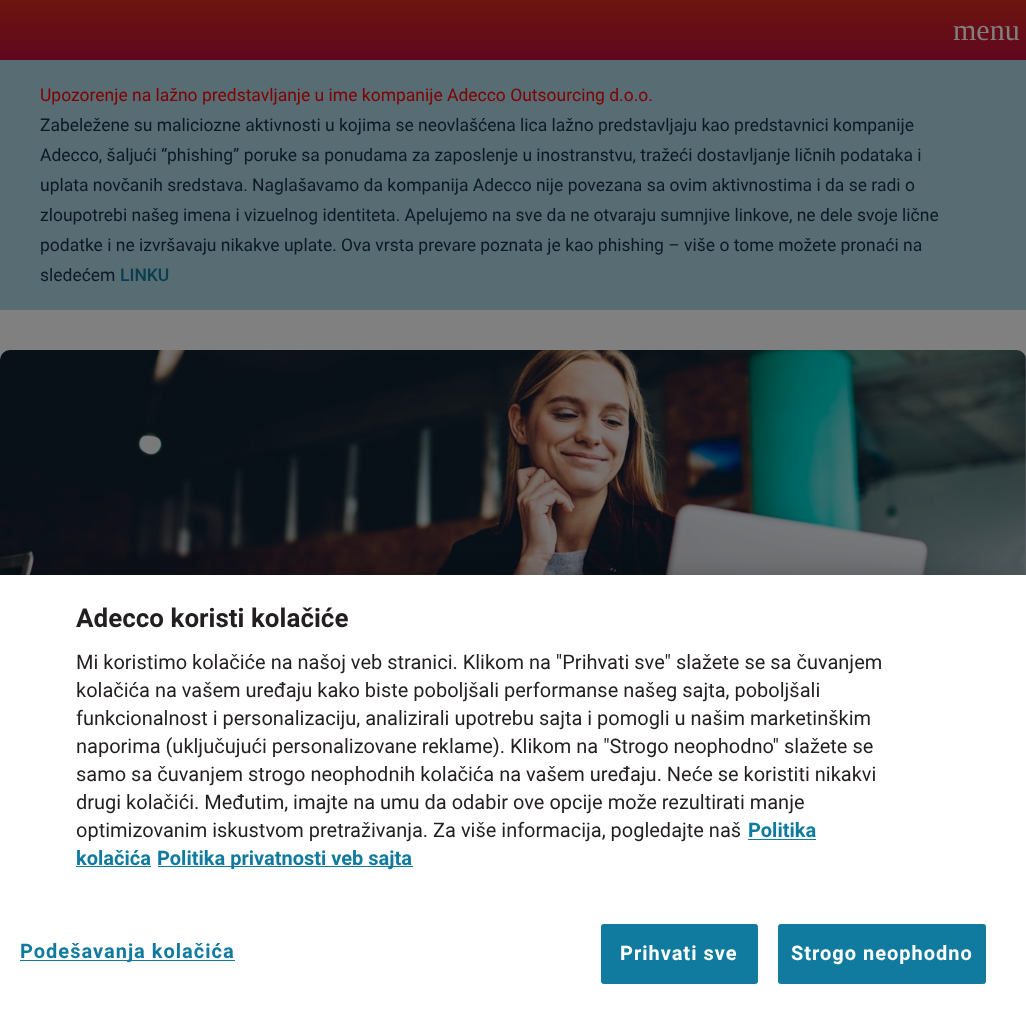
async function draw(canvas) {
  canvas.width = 1026;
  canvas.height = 1010;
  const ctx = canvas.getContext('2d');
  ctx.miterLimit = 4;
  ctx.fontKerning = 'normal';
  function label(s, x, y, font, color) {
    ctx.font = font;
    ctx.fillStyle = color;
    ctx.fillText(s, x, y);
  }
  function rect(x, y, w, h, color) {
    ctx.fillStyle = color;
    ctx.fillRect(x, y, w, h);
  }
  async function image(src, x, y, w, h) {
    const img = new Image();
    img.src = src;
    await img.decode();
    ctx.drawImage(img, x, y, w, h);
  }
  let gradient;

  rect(0, 0, 1026, 1010, '#808080');
  gradient = ctx.createLinearGradient(513, 0, 513, 60);
  gradient.addColorStop(0, '#6d150e');
  gradient.addColorStop(1, '#60071f');
  ctx.fillStyle = gradient;
  ctx.fillRect(0, 0, 1026, 60);
  label('menu', 953, 40, '30px Liberation Serif', '#808080');
  rect(0, 60, 1026, 250, '#576c73');
  label('Upozorenje na lažno predstavljanje u ime kompanije Adecco Outsourcing d.o.o.', 40, 101, '17.5px Roboto', '#800000');
  label('Zabeležene su maliciozne aktivnosti u kojima se neovlašćena lica lažno predstavljaju kao predstavnici kompanije', 40, 131, '17.5px Roboto', '#0e1826');
  label('Adecco, šaljući “phishing” poruke sa ponudama za zaposlenje u inostranstvu, tražeći dostavljanje ličnih podataka i', 40, 161, '17.5px Roboto', '#0e1826');
  label('uplata novčanih sredstava. Naglašavamo da kompanija Adecco nije povezana sa ovim aktivnostima i da se radi o', 40, 191, '17.5px Roboto', '#0e1826');
  label('zloupotrebi našeg imena i vizuelnog identiteta. Apelujemo na sve da ne otvaraju sumnjive linkove, ne dele svoje lične', 40, 221, '17.5px Roboto', '#0e1826');
  label('podatke i ne izvršavaju nikakve uplate. Ova vrsta prevare poznata je kao phishing – više o tome možete pronaći na', 40, 251, '17.5px Roboto', '#0e1826');
  label('sledećem', 40, 281, '17.5px Roboto', '#0e1826');
  label('LINKU', 120, 281, '500 17.5px Roboto', '#083e4f');
  await image('assets/img1.png', 0, 350, 1026, 225);
  ctx.fillStyle = '#00000033';
  ctx.filter = 'blur(11px)';
  ctx.beginPath();
  ctx.rect(0, 575, 1026, 435);
  ctx.fill();
  ctx.filter = 'none';
  rect(0, 575, 1026, 435, '#fff');
  label('Adecco koristi kolačiće', 76, 627, 'bold 26px Roboto', '#231f20');
  label('Mi koristimo kolačiće na našoj veb stranici. Klikom na "Prihvati sve" slažete se sa čuvanjem', 76, 669, '20px Roboto', '#231f20');
  label('kolačića na vašem uređaju kako biste poboljšali performanse našeg sajta, poboljšali', 76, 697, '20px Roboto', '#231f20');
  label('funkcionalnost i personalizaciju, analizirali upotrebu sajta i pomogli u našim marketinškim', 76, 725, '20px Roboto', '#231f20');
  label('naporima (uključujući personalizovane reklame). Klikom na "Strogo neophodno" slažete se', 76, 753, '20px Roboto', '#231f20');
  label('samo sa čuvanjem strogo neophodnih kolačića na vašem uređaju. Neće se koristiti nikakvi', 76, 781, '20px Roboto', '#231f20');
  label('drugi kolačići. Međutim, imajte na umu da odabir ove opcije može rezultirati manje', 76, 809, '20px Roboto', '#231f20');
  label('optimizovanim iskustvom pretraživanja. Za više informacija, pogledajte naš', 76, 837, '20px Roboto', '#231f20');
  label('Politika', 748, 837, 'bold 20px Roboto', '#107b9e');
  rect(748, 839, 68, 1, '#107b9e');
  label('kolačića', 76, 865, 'bold 20px Roboto', '#107b9e');
  rect(76, 866, 75, 1, '#107b9e');
  rect(158, 866, 255, 1, '#107b9e');
  label('Politika privatnosti veb sajta', 157, 865, 'bold 20px Roboto', '#107b9e');
  rect(20, 960, 215, 1, '#107b9e');
  ctx.letterSpacing = '1px';
  label('Podešavanja kolačića', 20, 958, 'bold 20px Roboto', '#107b9e');
  ctx.beginPath();
  ctx.roundRect(601.5, 924.5, 156, 59, 2);
  ctx.fill();
  ctx.strokeStyle = '#107b9e';
  ctx.stroke();
  label('Prihvati sve', 620, 960, 'bold 20px Roboto', '#fff');
  ctx.fillStyle = '#107b9e';
  ctx.beginPath();
  ctx.roundRect(778.5, 924.5, 207, 59, 2);
  ctx.fill();
  ctx.stroke();
  label('Strogo neophodno', 791, 960, 'bold 20px Roboto', '#fff');
}

draw(document.querySelector('canvas'));
